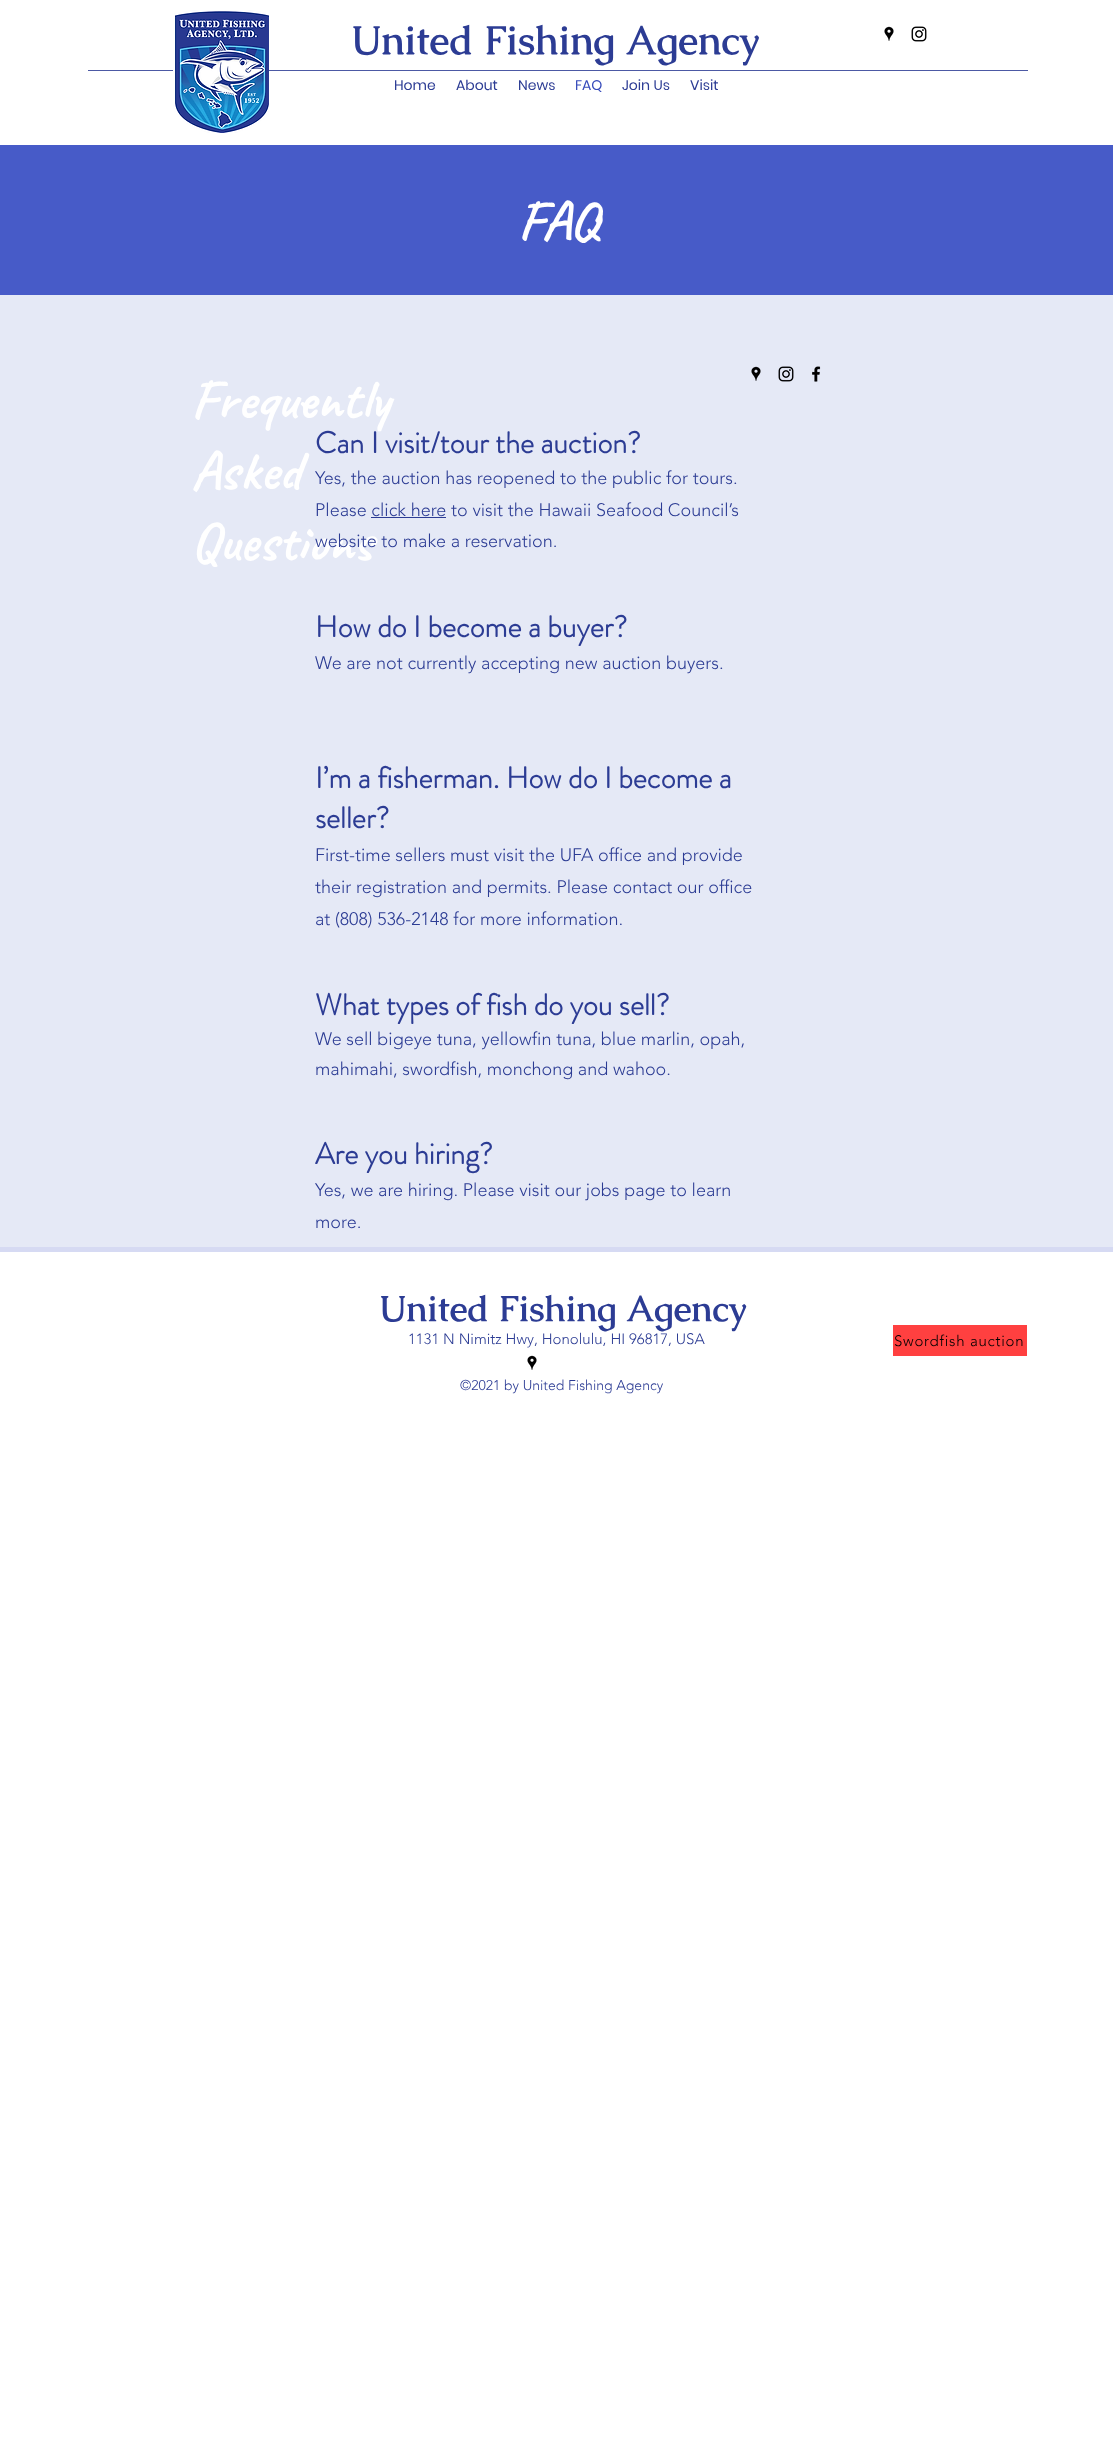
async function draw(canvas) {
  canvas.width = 1113;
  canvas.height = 2437;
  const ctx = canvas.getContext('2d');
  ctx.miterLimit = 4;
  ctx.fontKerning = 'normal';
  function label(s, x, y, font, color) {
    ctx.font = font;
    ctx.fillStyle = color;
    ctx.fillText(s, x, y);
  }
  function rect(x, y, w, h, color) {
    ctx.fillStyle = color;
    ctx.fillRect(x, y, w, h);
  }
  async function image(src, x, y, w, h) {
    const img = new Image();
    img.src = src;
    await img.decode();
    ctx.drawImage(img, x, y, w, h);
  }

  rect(0, 0, 1113, 2437, '#fff');
  rect(88, 70, 940, 1, '#4c59a4');
  await image('assets/img1.png', 173, 10, 96, 123);
  label('United Fishing Agency', 351, 54, 'bold 40px Caudex', '#2c3c94');
  await image('assets/img2.png', 884, 26, 10, 15);
  await image('assets/img3.png', 911, 26, 16, 16);
  label('Home', 394, 90, '14px Poppins', '#2c3c94');
  label('About', 456, 90, '14px Poppins', '#2c3c94');
  label('News', 518, 90, '14px Poppins', '#2c3c94');
  label('FAQ', 575, 90, '14px Poppins', '#384cbb');
  label('Join Us', 622, 90, '14px Poppins', '#2c3c94');
  label('Visit', 690, 90, '14px Poppins', '#2c3c94');
  rect(0, 145, 1113, 150, '#475bc8');
  label('FAQ', 518, 239, 'bold 56px Caveat', '#fff');
  rect(0, 295, 1113, 952, '#e5e9f6');
  await image('assets/img4.png', 751, 366, 10, 15);
  await image('assets/img5.png', 778, 366, 16, 16);
  await image('assets/img6.png', 812, 366, 9, 16);
  label('Frequently', 191, 418, 'bold 56px Caveat', '#fff');
  label('Asked', 191, 489, 'bold 56px Caveat', '#fff');
  label('Questions', 191, 560, 'bold 56px Caveat', '#fff');
  label('Can I visit/tour the auction?', 315, 453, 'bold 30px "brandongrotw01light"', '#2c3c94');
  label('Yes, the auction has reopened to the public for tours.', 315, 484, '300 18px "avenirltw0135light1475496"', '#2c3c94');
  label('Please click here to visit the Hawaii Seafood Council’s', 315, 516, '300 18px "avenirltw0135light1475496"', '#2c3c94');
  rect(371, 517, 75, 1, '#2c3c94');
  label('website to make a reservation.', 315, 547, '300 18px "avenirltw0135light1475496"', '#2c3c94');
  label('How do I become a buyer?', 315, 637, 'bold 30px "brandongrotw01light"', '#2c3c94');
  label('We are not currently accepting new auction buyers.', 315, 669, '300 18px "avenirltw0135light1475496"', '#2c3c94');
  label('I’m a fisherman. How do I become a', 315, 788, 'bold 30px "brandongrotw01light"', '#2c3c94');
  label('seller?', 315, 828, 'bold 30px "brandongrotw01light"', '#2c3c94');
  label('First-time sellers must visit the UFA office and provide', 315, 861, '300 18px "avenirltw0135light1475496"', '#2c3c94');
  label('their registration and permits. Please contact our office', 315, 893, '300 18px "avenirltw0135light1475496"', '#2c3c94');
  label('at (808) 536-2148 for more information.', 315, 925, '300 18px "avenirltw0135light1475496"', '#2c3c94');
  label('What types of fish do you sell?', 315, 1015, 'bold 30px "brandongrotw01light"', '#2c3c94');
  label('We sell bigeye tuna, yellowfin tuna, blue marlin, opah,', 315, 1045, '300 18px "avenirltw0135light1475496"', '#2c3c94');
  label('mahimahi, swordfish, monchong and wahoo.', 315, 1075, '300 18px "avenirltw0135light1475496"', '#2c3c94');
  label('Are you hiring?', 315, 1164, 'bold 30px "brandongrotw01light"', '#2c3c94');
  label('Yes, we are hiring. Please visit our jobs page to learn', 315, 1196, '300 18px "avenirltw0135light1475496"', '#2c3c94');
  label('more.', 315, 1228, '300 18px "avenirltw0135light1475496"', '#2c3c94');
  rect(0, 1247, 1113, 5, '#d6daf3');
  label('United Fishing Agency', 379, 1321, 'bold 36px Caudex', '#2c3c94');
  label('1131 N Nimitz Hwy, Honolulu, HI 96817, USA', 408, 1344, '300 15px "avenirltw0135light1475496"', '#2c3c94');
  rect(893, 1325, 134, 31, '#ff4040');
  ctx.letterSpacing = '0.75px';
  label('Swordfish auction', 894, 1346, '300 15px "avenirltw0135light1475496"', '#000');
  await image('assets/img2.png', 527, 1355, 10, 15);
  ctx.letterSpacing = '0px';
  label('©2021 by United Fishing Agency', 460, 1390, '300 14px "avenirltw0135light1475496"', '#2c3c94');
}

draw(document.querySelector('canvas'));
